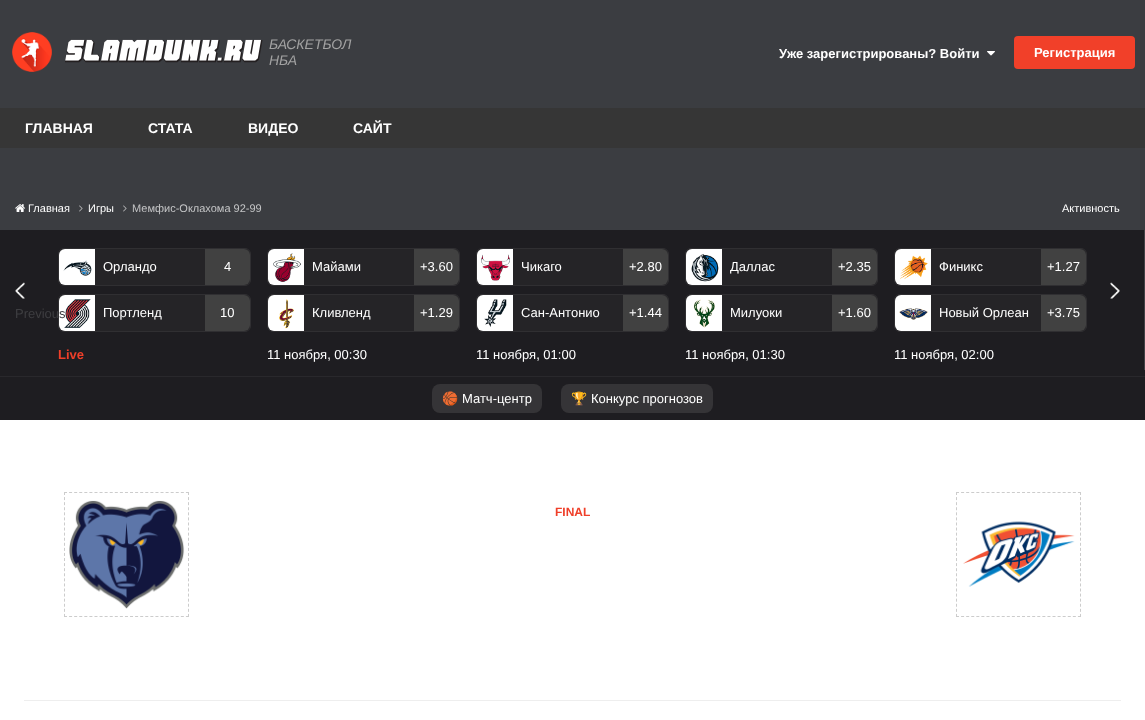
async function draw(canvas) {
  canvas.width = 1145;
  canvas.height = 720;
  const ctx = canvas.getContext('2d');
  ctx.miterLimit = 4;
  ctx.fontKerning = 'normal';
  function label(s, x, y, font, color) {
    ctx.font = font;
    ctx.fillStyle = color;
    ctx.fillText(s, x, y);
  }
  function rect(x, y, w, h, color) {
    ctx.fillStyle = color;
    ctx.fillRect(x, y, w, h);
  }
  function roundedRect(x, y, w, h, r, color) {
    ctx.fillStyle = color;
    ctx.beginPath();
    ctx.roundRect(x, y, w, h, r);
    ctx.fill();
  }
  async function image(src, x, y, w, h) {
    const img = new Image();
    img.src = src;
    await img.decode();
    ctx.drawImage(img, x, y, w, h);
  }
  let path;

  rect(0, 0, 1145, 720, '#3b3d41');
  await image('assets/img1.png', 12, 32, 40, 40);
  await image('assets/img2.png', 65, 39, 198, 24);
  label('БАСКЕТБОЛ', 269, 49, 'italic 14px Liberation Sans', '#a2a2a2');
  label('НБА', 269, 65, 'italic 14px Liberation Sans', '#a2a2a2');
  label('Уже зарегистрированы? Войти', 779, 58, 'bold 13px Liberation Sans', '#fff');
  await image('assets/img3.png', 987, 51, 8, 5);
  roundedRect(1014, 36, 121, 33, 4, '#f14029');
  label('Регистрация', 1034, 57, 'bold 13px Liberation Sans', '#fff');
  rect(0, 108, 1145, 40, '#363636');
  label('ГЛАВНАЯ', 25, 133, 'bold 14px Liberation Sans', '#fff');
  label('СТАТА', 148, 133, 'bold 14px Liberation Sans', '#fff');
  label('ВИДЕО', 248, 133, 'bold 14px Liberation Sans', '#fff');
  label('САЙТ', 353, 133, 'bold 14px Liberation Sans', '#fff');
  await image('assets/img4.png', 15, 204, 10, 8);
  label('Главная', 28, 212, '11px Liberation Sans', '#fff');
  await image('assets/img5.png', 79, 205, 4, 7);
  label('Игры', 88, 212, '11px Liberation Sans', '#fff');
  await image('assets/img5.png', 123, 205, 4, 7);
  label('Мемфис-Оклахома 92-99', 132, 212, '11px Liberation Sans', '#c4c5c6');
  label('Активность', 1062, 212, '11px Liberation Sans', '#fff');
  rect(0, 370, 1145, 50, '#1e1d21');
  rect(0, 230, 1144, 140, '#1e1d21');
  rect(1144, 230, 1, 140, '#434246');
  ctx.fillStyle = '#252427';
  ctx.beginPath();
  ctx.roundRect(58.5, 248.5, 192, 37, 5.5);
  ctx.fill();
  ctx.strokeStyle = '#302f32';
  ctx.stroke();
  ctx.fillStyle = '#fff';
  ctx.beginPath();
  ctx.roundRect(59, 249, 36, 36, [6, 0, 0, 6]);
  ctx.fill();
  await image('assets/img6.png', 63, 260, 29, 16);
  label('Орландо', 103, 271, '13px Liberation Sans', '#fff');
  ctx.fillStyle = '#414141';
  ctx.beginPath();
  ctx.roundRect(205, 249, 45, 36, [0, 6, 6, 0]);
  ctx.fill();
  label('4', 224, 271, '13px Liberation Sans', '#fff');
  ctx.fillStyle = '#252427';
  ctx.beginPath();
  ctx.roundRect(58.5, 294.5, 192, 37, 5.5);
  ctx.fill();
  ctx.stroke();
  ctx.fillStyle = '#fff';
  ctx.beginPath();
  ctx.roundRect(59, 295, 36, 36, [6, 0, 0, 6]);
  ctx.fill();
  await image('assets/img7.png', 64, 299, 27, 29);
  label('Портленд', 103, 317, '13px Liberation Sans', '#fff');
  ctx.fillStyle = '#414141';
  ctx.beginPath();
  ctx.roundRect(205, 295, 45, 36, [0, 6, 6, 0]);
  ctx.fill();
  label('10', 220, 317, '13px Liberation Sans', '#fff');
  label('Live', 58, 359, 'bold 13px Liberation Sans', '#ef3f29');
  ctx.fillStyle = '#252427';
  ctx.beginPath();
  ctx.roundRect(267.5, 248.5, 192, 37, 5.5);
  ctx.fill();
  ctx.stroke();
  ctx.fillStyle = '#fff';
  ctx.beginPath();
  ctx.roundRect(268, 249, 36, 36, [6, 0, 0, 6]);
  ctx.fill();
  await image('assets/img8.png', 273, 253, 28, 29);
  label('Майами', 312, 271, '13px Liberation Sans', '#fff');
  ctx.fillStyle = '#414141';
  ctx.beginPath();
  ctx.roundRect(414, 249, 45, 36, [0, 6, 6, 0]);
  ctx.fill();
  label('+3.60', 420, 271, '13px Liberation Sans', '#fff');
  ctx.fillStyle = '#252427';
  ctx.beginPath();
  ctx.roundRect(267.5, 294.5, 192, 37, 5.5);
  ctx.fill();
  ctx.stroke();
  ctx.fillStyle = '#fff';
  ctx.beginPath();
  ctx.roundRect(268, 295, 36, 36, [6, 0, 0, 6]);
  ctx.fill();
  await image('assets/img9.png', 279, 299, 15, 30);
  label('Кливленд', 312, 317, '13px Liberation Sans', '#fff');
  ctx.fillStyle = '#414141';
  ctx.beginPath();
  ctx.roundRect(414, 295, 45, 36, [0, 6, 6, 0]);
  ctx.fill();
  label('+1.29', 420, 317, '13px Liberation Sans', '#fff');
  label('11 ноября, 00:30', 267, 359, '13px Liberation Sans', '#fff');
  ctx.fillStyle = '#252427';
  ctx.beginPath();
  ctx.roundRect(476.5, 248.5, 192, 37, 5.5);
  ctx.fill();
  ctx.stroke();
  ctx.fillStyle = '#fff';
  ctx.beginPath();
  ctx.roundRect(477, 249, 36, 36, [6, 0, 0, 6]);
  ctx.fill();
  await image('assets/img10.png', 481, 254, 29, 27);
  label('Чикаго', 521, 271, '13px Liberation Sans', '#fff');
  ctx.fillStyle = '#414141';
  ctx.beginPath();
  ctx.roundRect(623, 249, 45, 36, [0, 6, 6, 0]);
  ctx.fill();
  label('+2.80', 629, 271, '13px Liberation Sans', '#fff');
  ctx.fillStyle = '#252427';
  ctx.beginPath();
  ctx.roundRect(476.5, 294.5, 192, 37, 5.5);
  ctx.fill();
  ctx.stroke();
  ctx.fillStyle = '#fff';
  ctx.beginPath();
  ctx.roundRect(477, 295, 36, 36, [6, 0, 0, 6]);
  ctx.fill();
  await image('assets/img11.png', 484, 299, 23, 28);
  label('Сан-Антонио', 521, 317, '13px Liberation Sans', '#fff');
  ctx.fillStyle = '#414141';
  ctx.beginPath();
  ctx.roundRect(623, 295, 45, 36, [0, 6, 6, 0]);
  ctx.fill();
  label('+1.44', 629, 317, '13px Liberation Sans', '#fff');
  label('11 ноября, 01:00', 476, 359, '13px Liberation Sans', '#fff');
  ctx.fillStyle = '#252427';
  ctx.beginPath();
  ctx.roundRect(685.5, 248.5, 192, 37, 5.5);
  ctx.fill();
  ctx.stroke();
  ctx.fillStyle = '#fff';
  ctx.beginPath();
  ctx.roundRect(686, 249, 36, 36, [6, 0, 0, 6]);
  ctx.fill();
  await image('assets/img12.png', 691, 254, 28, 28);
  label('Даллас', 730, 271, '13px Liberation Sans', '#fff');
  ctx.fillStyle = '#414141';
  ctx.beginPath();
  ctx.roundRect(832, 249, 45, 36, [0, 6, 6, 0]);
  ctx.fill();
  label('+2.35', 838, 271, '13px Liberation Sans', '#fff');
  ctx.fillStyle = '#252427';
  ctx.beginPath();
  ctx.roundRect(685.5, 294.5, 192, 37, 5.5);
  ctx.fill();
  ctx.stroke();
  ctx.fillStyle = '#fff';
  ctx.beginPath();
  ctx.roundRect(686, 295, 36, 36, [6, 0, 0, 6]);
  ctx.fill();
  await image('assets/img13.png', 693, 299, 22, 29);
  label('Милуоки', 730, 317, '13px Liberation Sans', '#fff');
  ctx.fillStyle = '#414141';
  ctx.beginPath();
  ctx.roundRect(832, 295, 45, 36, [0, 6, 6, 0]);
  ctx.fill();
  label('+1.60', 838, 317, '13px Liberation Sans', '#fff');
  label('11 ноября, 01:30', 685, 359, '13px Liberation Sans', '#fff');
  ctx.fillStyle = '#252427';
  ctx.beginPath();
  ctx.roundRect(894.5, 248.5, 192, 37, 5.5);
  ctx.fill();
  ctx.stroke();
  ctx.fillStyle = '#fff';
  ctx.beginPath();
  ctx.roundRect(895, 249, 36, 36, [6, 0, 0, 6]);
  ctx.fill();
  await image('assets/img14.png', 900, 255, 28, 25);
  label('Финикс', 939, 271, '13px Liberation Sans', '#fff');
  ctx.fillStyle = '#414141';
  ctx.beginPath();
  ctx.roundRect(1041, 249, 45, 36, [0, 6, 6, 0]);
  ctx.fill();
  label('+1.27', 1047, 271, '13px Liberation Sans', '#fff');
  ctx.fillStyle = '#252427';
  ctx.beginPath();
  ctx.roundRect(894.5, 294.5, 192, 37, 5.5);
  ctx.fill();
  ctx.stroke();
  ctx.fillStyle = '#fff';
  ctx.beginPath();
  ctx.roundRect(895, 295, 36, 36, [6, 0, 0, 6]);
  ctx.fill();
  await image('assets/img15.png', 899, 308, 29, 12);
  label('Новый Орлеан', 939, 317, '13px Liberation Sans', '#fff');
  ctx.fillStyle = '#414141';
  ctx.beginPath();
  ctx.roundRect(1041, 295, 45, 36, [0, 6, 6, 0]);
  ctx.fill();
  label('+3.75', 1047, 317, '13px Liberation Sans', '#fff');
  label('11 ноября, 02:00', 894, 359, '13px Liberation Sans', '#fff');
  await image('assets/img16.png', 1110, 282, 10, 17);
  await image('assets/img17.png', 15, 282, 10, 17);
  label('Previous', 15, 318, '13px Liberation Sans', '#3e3e41');
  rect(0, 376, 1145, 1, '#29282c');
  roundedRect(432, 384, 110, 29, 8, '#353437');
  label('🏀', 442, 403, '13px Noto Color Emoji', '#fff');
  label('Матч-центр', 462, 403, '13px Liberation Sans', '#fff');
  roundedRect(561, 384, 152, 29, 8, '#353437');
  label('🏆', 571, 403, '13px Noto Color Emoji', '#fff');
  label('Конкурс прогнозов', 591, 403, '13px Liberation Sans', '#fff');
  rect(0, 420, 1145, 300, '#fff');
  path = new Path2D('M64 492.5H189');
  ctx.strokeStyle = '#ccc';
  ctx.setLineDash([3, 2.08]);
  ctx.stroke(path);
  path = new Path2D('M188.5 492V617');
  ctx.stroke(path);
  path = new Path2D('M64 616.5H189');
  ctx.stroke(path);
  path = new Path2D('M64.5 492V617');
  ctx.stroke(path);
  await image('assets/img18.png', 69, 500, 116, 109);
  label('FINAL', 555, 516, 'bold 12px Liberation Sans', '#ef3f29');
  path = new Path2D('M956 492.5H1081');
  ctx.stroke(path);
  path = new Path2D('M1080.5 492V617');
  ctx.stroke(path);
  path = new Path2D('M956 616.5H1081');
  ctx.stroke(path);
  path = new Path2D('M956.5 492V617');
  ctx.stroke(path);
  await image('assets/img19.png', 963, 521, 112, 66);
  rect(24, 700, 1097, 1, '#eee');
}

draw(document.querySelector('canvas'));
